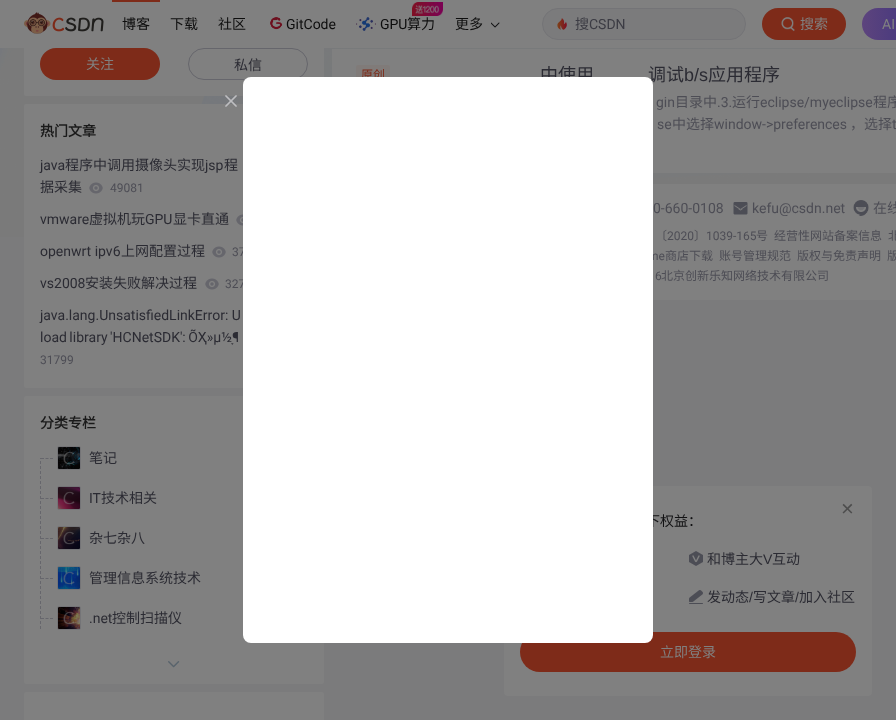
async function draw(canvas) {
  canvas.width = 896;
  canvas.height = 720;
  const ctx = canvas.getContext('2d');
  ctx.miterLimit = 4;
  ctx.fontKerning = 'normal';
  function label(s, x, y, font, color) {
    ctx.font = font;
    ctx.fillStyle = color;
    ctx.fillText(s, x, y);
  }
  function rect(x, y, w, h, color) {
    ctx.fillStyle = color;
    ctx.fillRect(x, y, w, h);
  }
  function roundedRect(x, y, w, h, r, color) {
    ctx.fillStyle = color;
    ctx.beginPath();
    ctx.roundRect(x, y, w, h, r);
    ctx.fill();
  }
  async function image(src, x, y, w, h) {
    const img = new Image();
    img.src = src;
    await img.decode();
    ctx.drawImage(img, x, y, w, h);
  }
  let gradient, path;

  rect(0, 0, 896, 720, '#7b7b7c');
  await image('assets/img1.png', 0, 48, 896, 189);
  roundedRect(24, -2, 300, 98, 2, '#808080');
  rect(0, 0, 896, 48, '#808080');
  await image('assets/img2.png', 24, 12, 80, 22);
  rect(112, 0, 48, 2, '#7e2b19');
  label('博客', 122, 29, '14px Noto Sans CJK SC', '#0d0d0d');
  label('下载', 170, 29, '14px Noto Sans CJK SC', '#0d0d0d');
  label('社区', 218, 29, '14px Noto Sans CJK SC', '#0d0d0d');
  await image('assets/img3.png', 270, 17, 13, 13);
  label('GitCode', 286, 29, '14px Roboto', '#0d0d0d');
  await image('assets/img4.png', 412, 2, 31, 14);
  await image('assets/img5.png', 356, 17, 20, 14);
  label('GPU', 380, 29, '14px Roboto', '#0d0d0d');
  label('算力', 407, 29, '14px Noto Sans CJK SC', '#0d0d0d');
  label('更多', 455, 29, '14px Noto Sans CJK SC', '#0d0d0d');
  await image('assets/img6.png', 491, 22, 9, 6);
  ctx.fillStyle = '#7b7b7c';
  ctx.beginPath();
  ctx.roundRect(542.5, 8.5, 203, 31, 15.5);
  ctx.fill();
  ctx.strokeStyle = '#747477';
  ctx.stroke();
  await image('assets/img7.png', 557, 18, 10, 12);
  label('搜', 575, 29, '14px Noto Sans CJK SC', '#3c3c44');
  label('CSDN', 589, 29, '14px Roboto', '#3c3c44');
  roundedRect(762, 8, 84, 32, 16, '#7e2b19');
  await image('assets/img8.png', 781, 17, 14, 15);
  label('搜索', 800, 29, '14px Noto Sans CJK SC', '#808080');
  gradient = ctx.createLinearGradient(862, 24, 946, 24);
  gradient.addColorStop(0, '#5d447d');
  gradient.addColorStop(1, '#322e80');
  ctx.fillStyle = gradient;
  ctx.beginPath();
  ctx.roundRect(862, 8, 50, 32, 16);
  ctx.fill();
  label('AI', 882, 29, '14px Roboto', '#808080');
  roundedRect(40, 48, 120, 32, 16, '#7e2b19');
  label('关注', 86, 69, '14px Noto Sans CJK SC', '#808080');
  ctx.beginPath();
  ctx.roundRect(188.5, 48.5, 119, 31, 15.5);
  ctx.strokeStyle = '#66666c';
  ctx.stroke();
  label('私信', 234, 70, '14px Noto Sans CJK SC', '#2b2b33');
  roundedRect(24, 104, 300, 284, 2, '#808080');
  label('热门文章', 40, 136, 'bold 14px Noto Sans CJK SC', '#1a1a1a');
  label('java', 40, 170, '14px Roboto', '#2b2b33');
  label('程序中调用摄像头实现', 65, 170, '14px Noto Sans CJK SC', '#2b2b33');
  label('jsp', 205, 170, '14px Roboto', '#2b2b33');
  label('程', 224, 170, '14px Noto Sans CJK SC', '#2b2b33');
  label('据采集', 40, 192, '14px Noto Sans CJK SC', '#2b2b33');
  await image('assets/img9.png', 89, 182, 14, 12);
  label('49081', 110, 192, '12px Roboto', '#4d4d55');
  label('vmware', 40, 224, '14px Roboto', '#2b2b33');
  label('虚拟机玩', 89, 224, '14px Noto Sans CJK SC', '#2b2b33');
  label('GPU', 145, 224, '14px Roboto', '#2b2b33');
  label('显卡直通', 173, 224, '14px Noto Sans CJK SC', '#2b2b33');
  await image('assets/img10.png', 236, 214, 7, 12);
  label('openwrt ipv6', 40, 256, '14px Roboto', '#2b2b33');
  label('上网配置过程', 121, 256, '14px Noto Sans CJK SC', '#2b2b33');
  await image('assets/img9.png', 212, 246, 14, 12);
  label('37', 232, 256, '12px Roboto', '#4d4d55');
  label('vs2008', 40, 288, '14px Roboto', '#2b2b33');
  label('安装失败解决过程', 85, 288, '14px Noto Sans CJK SC', '#2b2b33');
  await image('assets/img9.png', 205, 278, 14, 12);
  label('327', 225, 288, '12px Roboto', '#4d4d55');
  label('java.lang.UnsatisfiedLinkError: U', 40, 320, '14px Roboto', '#2b2b33');
  ctx.wordSpacing = '-1px';
  label('load library \'HCNetSDK\': ÕҲ»µ½ָ¶', 40, 342, '14px Roboto', '#2b2b33');
  ctx.wordSpacing = '0px';
  label('31799', 40, 364, '12px Roboto', '#4d4d55');
  roundedRect(24, 396, 300, 288, 2, '#808080');
  label('分类专栏', 40, 428, 'bold 14px Noto Sans CJK SC', '#1a1a1a');
  ctx.save();
  ctx.beginPath();
  ctx.rect(24, 434, 300, 208);
  ctx.clip();
  path = new Path2D('M40.5 446V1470');
  ctx.setLineDash([3, 2]);
  ctx.stroke(path);
  ctx.restore();
  rect(40, 446, 1, 12, '#808080');
  path = new Path2D('M41 458.5H44M45.5 458.5H48.5M50 458.5H53');
  ctx.stroke(path);
  ctx.beginPath();
  ctx.roundRect(57.5, 446.5, 23, 23, 1.5);
  ctx.strokeStyle = '#747477';
  ctx.stroke();
  await image('assets/img11.png', 58, 447, 22, 22);
  label('笔记', 89, 463, '14px Noto Sans CJK SC', '#2b2b33');
  path = new Path2D('M41 498.5H44M45.5 498.5H48.5M50 498.5H53');
  ctx.strokeStyle = '#66666c';
  ctx.stroke(path);
  ctx.beginPath();
  ctx.roundRect(57.5, 486.5, 23, 23, 1.5);
  ctx.strokeStyle = '#747477';
  ctx.stroke();
  await image('assets/img12.png', 58, 487, 22, 22);
  label('IT', 89, 503, '14px Roboto', '#2b2b33');
  label('技术相关', 101, 503, '14px Noto Sans CJK SC', '#2b2b33');
  path = new Path2D('M41 538.5H44M45.5 538.5H48.5M50 538.5H53');
  ctx.strokeStyle = '#66666c';
  ctx.stroke(path);
  ctx.beginPath();
  ctx.roundRect(57.5, 526.5, 23, 23, 1.5);
  ctx.strokeStyle = '#747477';
  ctx.stroke();
  await image('assets/img13.png', 58, 527, 22, 22);
  label('杂七杂八', 89, 543, '14px Noto Sans CJK SC', '#2b2b33');
  path = new Path2D('M41 578.5H44M45.5 578.5H48.5M50 578.5H53');
  ctx.strokeStyle = '#66666c';
  ctx.stroke(path);
  ctx.beginPath();
  ctx.roundRect(57.5, 566.5, 23, 23, 1.5);
  ctx.strokeStyle = '#747477';
  ctx.stroke();
  await image('assets/img14.png', 58, 567, 22, 22);
  label('管理信息系统技术', 89, 583, '14px Noto Sans CJK SC', '#2b2b33');
  path = new Path2D('M41 618.5H44M45.5 618.5H48.5M50 618.5H53');
  ctx.strokeStyle = '#66666c';
  ctx.stroke(path);
  ctx.beginPath();
  ctx.roundRect(57.5, 606.5, 23, 23, 1.5);
  ctx.strokeStyle = '#747477';
  ctx.stroke();
  await image('assets/img15.png', 58, 607, 22, 22);
  label('.net', 89, 623, '14px Roboto', '#2b2b33');
  label('控制扫描仪', 112, 623, '14px Noto Sans CJK SC', '#2b2b33');
  rect(40, 630, 1, 12, '#808080');
  await image('assets/img16.png', 168, 661, 12, 7);
  roundedRect(24, 692, 300, 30, 2, '#808080');
  rect(332, 49, 564, 124, '#808080');
  roundedRect(356, 65, 34, 20, 2, '#807b79');
  label('原创', 361, 79, '12px Noto Sans CJK SC', '#7e2b19');
  label('中使用', 540, 81, '18px Noto Sans CJK SC', '#2b2b33');
  label('调试', 648, 81, '18px Noto Sans CJK SC', '#2b2b33');
  label('b/s', 684, 81, '18px Liberation Sans', '#2b2b33');
  label('应用程序', 708, 81, '18px Noto Sans CJK SC', '#2b2b33');
  label('gin', 656, 107, '14px Roboto', '#4d4d55');
  label('目录中', 675, 107, '14px Noto Sans CJK SC', '#4d4d55');
  label('.3.', 717, 107, '14px Roboto', '#4d4d55');
  label('运行', 732, 107, '14px Noto Sans CJK SC', '#4d4d55');
  label('eclipse/myeclipse', 760, 107, '14px Roboto', '#4d4d55');
  label('程序', 873, 107, '14px Noto Sans CJK SC', '#4d4d55');
  label('se', 657, 129, '14px Roboto', '#4d4d55');
  label('中选择', 672, 129, '14px Noto Sans CJK SC', '#4d4d55');
  label('window->preferences', 714, 129, '14px Roboto', '#4d4d55');
  label('，选择', 850, 129, '14px Noto Sans CJK SC', '#4d4d55');
  label('t', 892, 129, '14px Roboto', '#4d4d55');
  rect(653, 184, 243, 116, '#808080');
  label('0-660-0108', 653, 213, '14px Roboto', '#4d4d55');
  await image('assets/img17.png', 733, 202, 15, 13);
  label('kefu@csdn.net', 752, 213, '14px Roboto', '#4d4d55');
  await image('assets/img18.png', 853, 200, 16, 16);
  label('在线', 873, 213, '14px Noto Sans CJK SC', '#4d4d55');
  label('〔', 655, 240, '12px Noto Sans CJK SC', '#4d4d55');
  label('2020', 667, 240, '12px Roboto', '#4d4d55');
  label('〕', 694, 240, '12px Noto Sans CJK SC', '#4d4d55');
  label('1039-165', 706, 240, '12px Roboto', '#4d4d55');
  label('号', 756, 240, '12px Noto Sans CJK SC', '#4d4d55');
  label('经营性网站备案信息', 774, 240, '12px Noto Sans CJK SC', '#4d4d55');
  label('北', 888, 240, '12px Noto Sans CJK SC', '#4d4d55');
  label('me', 648, 260, '12px Roboto', '#4d4d55');
  label('商店下载', 665, 260, '12px Noto Sans CJK SC', '#4d4d55');
  label('账号管理规范', 719, 260, '12px Noto Sans CJK SC', '#4d4d55');
  label('版权与免责声明', 797, 260, '12px Noto Sans CJK SC', '#4d4d55');
  label('版', 887, 260, '12px Noto Sans CJK SC', '#4d4d55');
  label('6', 655, 280, '12px Roboto', '#4d4d55');
  label('北京创新乐知网络技术有限公司', 661, 280, '12px Noto Sans CJK SC', '#4d4d55');
  roundedRect(504, 486, 368, 210, 4, '#808080');
  label('下权益：', 646, 526, '14px Noto Sans CJK SC', '#111113');
  roundedRect(520, 632, 336, 40, 20, '#7e2b19');
  roundedRect(243, 77, 410, 566, 8, '#fff');
  await image('assets/img19.png', 225, 95, 12, 12);
  label('×', 841, 516, '22px Liberation Sans', '#4d4d4d');
  await image('assets/img20.png', 689, 551, 14, 15);
  label('和博主大', 707, 564, '14px Noto Sans CJK SC', '#2b2b33');
  label('V', 763, 564, '14px Liberation Sans', '#2b2b33');
  label('互动', 772, 564, '14px Noto Sans CJK SC', '#2b2b33');
  await image('assets/img21.png', 689, 590, 14, 14);
  label('发动态', 707, 602, '14px Noto Sans CJK SC', '#2b2b33');
  label('/', 749, 602, '14px Liberation Sans', '#2b2b33');
  label('写文章', 753, 602, '14px Noto Sans CJK SC', '#2b2b33');
  label('/', 795, 602, '14px Liberation Sans', '#2b2b33');
  label('加入社区', 799, 602, '14px Noto Sans CJK SC', '#2b2b33');
  label('立即登录', 660, 657, '14px Noto Sans CJK SC', '#808080');
}

draw(document.querySelector('canvas'));
